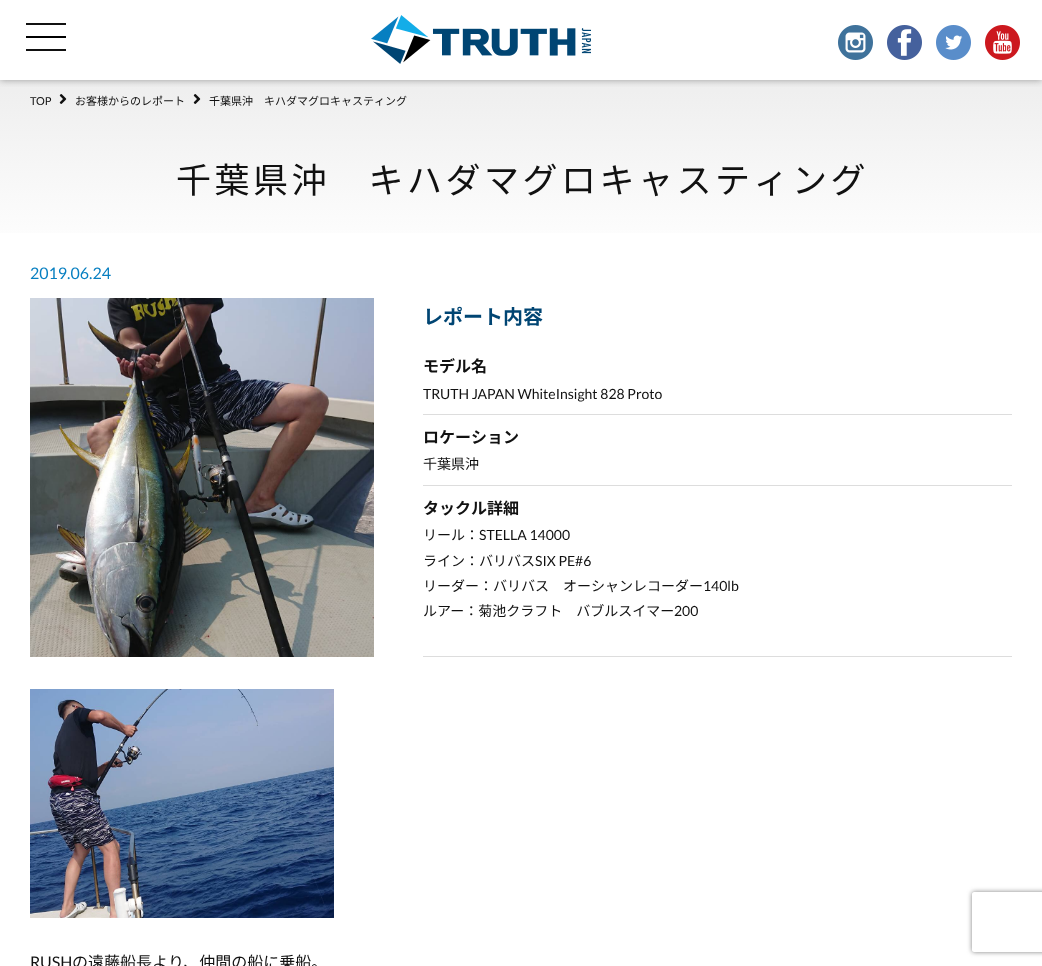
async function draw(canvas) {
  canvas.width = 1042;
  canvas.height = 966;
  const ctx = canvas.getContext('2d');
  ctx.miterLimit = 4;
  ctx.fontKerning = 'normal';
  function label(s, x, y, font, color) {
    ctx.font = font;
    ctx.fillStyle = color;
    ctx.fillText(s, x, y);
  }
  function rect(x, y, w, h, color) {
    ctx.fillStyle = color;
    ctx.fillRect(x, y, w, h);
  }
  async function image(src, x, y, w, h) {
    const img = new Image();
    img.src = src;
    await img.decode();
    ctx.drawImage(img, x, y, w, h);
  }
  let gradient, path;

  rect(0, 0, 1042, 966, '#fff');
  gradient = ctx.createLinearGradient(0, 80, 0, 259);
  gradient.addColorStop(0, '#eee');
  gradient.addColorStop(1, '#fff');
  ctx.fillStyle = gradient;
  ctx.fillRect(0, 80, 1042, 153);
  ctx.save();
  ctx.beginPath();
  ctx.rect(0, 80, 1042, 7);
  ctx.clip();
  ctx.fillStyle = '#999';
  ctx.filter = 'blur(3.5px)';
  ctx.beginPath();
  ctx.rect(0, 0, 1042, 80);
  ctx.fill();
  ctx.filter = 'none';
  ctx.restore();
  await image('assets/img1.png', 371, 15, 220, 49);
  await image('assets/img2.png', 838, 25, 35, 35);
  await image('assets/img3.png', 887, 25, 35, 35);
  await image('assets/img4.png', 936, 25, 35, 35);
  await image('assets/img5.png', 985, 25, 35, 35);
  rect(26, 36, 40, 2, '#000');
  rect(26, 23, 40, 2, '#111');
  rect(26, 49, 40, 2, '#111');
  label('TOP', 30, 105, '11px Lato', '#111');
  await image('assets/img6.png', 59, 94, 8, 10);
  label('お客様からのレポート', 75, 105, '11px Noto Sans JP', '#111');
  await image('assets/img6.png', 193, 94, 8, 10);
  label('千葉県沖　キハダマグロキャスティング', 209, 105, '11px Noto Sans JP', '#111');
  ctx.letterSpacing = '3.5px';
  label('千葉県沖　キハダマグロキャスティング', 176, 193, '35px Noto Sans JP', '#111');
  ctx.letterSpacing = '0px';
  label('2019.06.24', 30, 279, '16px Lato', '#077fc1');
  await image('assets/img7.png', 30, 298, 344, 359);
  label('レポート内容', 423, 324, 'bold 20px Noto Sans JP', '#004573');
  rect(423, 414, 589, 1, '#ddd');
  label('モデル名', 423, 372, 'bold 16px Noto Sans JP', '#111');
  label('TRUTH JAPAN WhiteInsight 828 Proto', 423, 399, '14px Lato', '#111');
  rect(423, 485, 589, 1, '#ddd');
  label('ロケーション', 423, 443, 'bold 16px Noto Sans JP', '#111');
  label('千葉県沖', 423, 469, '14px Noto Sans JP', '#111');
  rect(423, 656, 589, 1, '#ddd');
  label('タックル詳細', 423, 514, 'bold 16px Noto Sans JP', '#111');
  label('リール：', 423, 540, '14px Noto Sans JP', '#111');
  label('STELLA 14000', 479, 540, '14px Lato', '#111');
  label('ライン：バリバス', 423, 566, '14px Noto Sans JP', '#111');
  label('SIX PE#6', 535, 566, '14px Lato', '#111');
  label('リーダー：バリバス　オーシャンレコーダー', 423, 591, '14px Noto Sans JP', '#111');
  label('140lb', 703, 591, '14px Lato', '#111');
  label('ルアー：菊池クラフト　バブルスイマー', 423, 616, '14px Noto Sans JP', '#111');
  label('200', 674, 616, '14px Lato', '#111');
  await image('assets/img8.png', 30, 689, 304, 229);
  label('RUSH', 30, 968, '16px Lato', '#111');
  label('の遠藤船長より、仲間の船に乗船。', 72, 968, '16px Noto Sans JP', '#111');
  ctx.save();
  path = new Path2D('M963 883H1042V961H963ZM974 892H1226C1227 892 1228 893 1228 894V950C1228 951 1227 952 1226 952H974C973 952 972 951 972 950V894C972 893 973 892 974 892Z');
  ctx.clip(path, 'evenodd');
  ctx.fillStyle = '#808080';
  ctx.filter = 'blur(2.5px)';
  ctx.beginPath();
  ctx.roundRect(972, 892, 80, 60, 2);
  ctx.fill();
  ctx.filter = 'none';
  ctx.restore();
}

draw(document.querySelector('canvas'));
